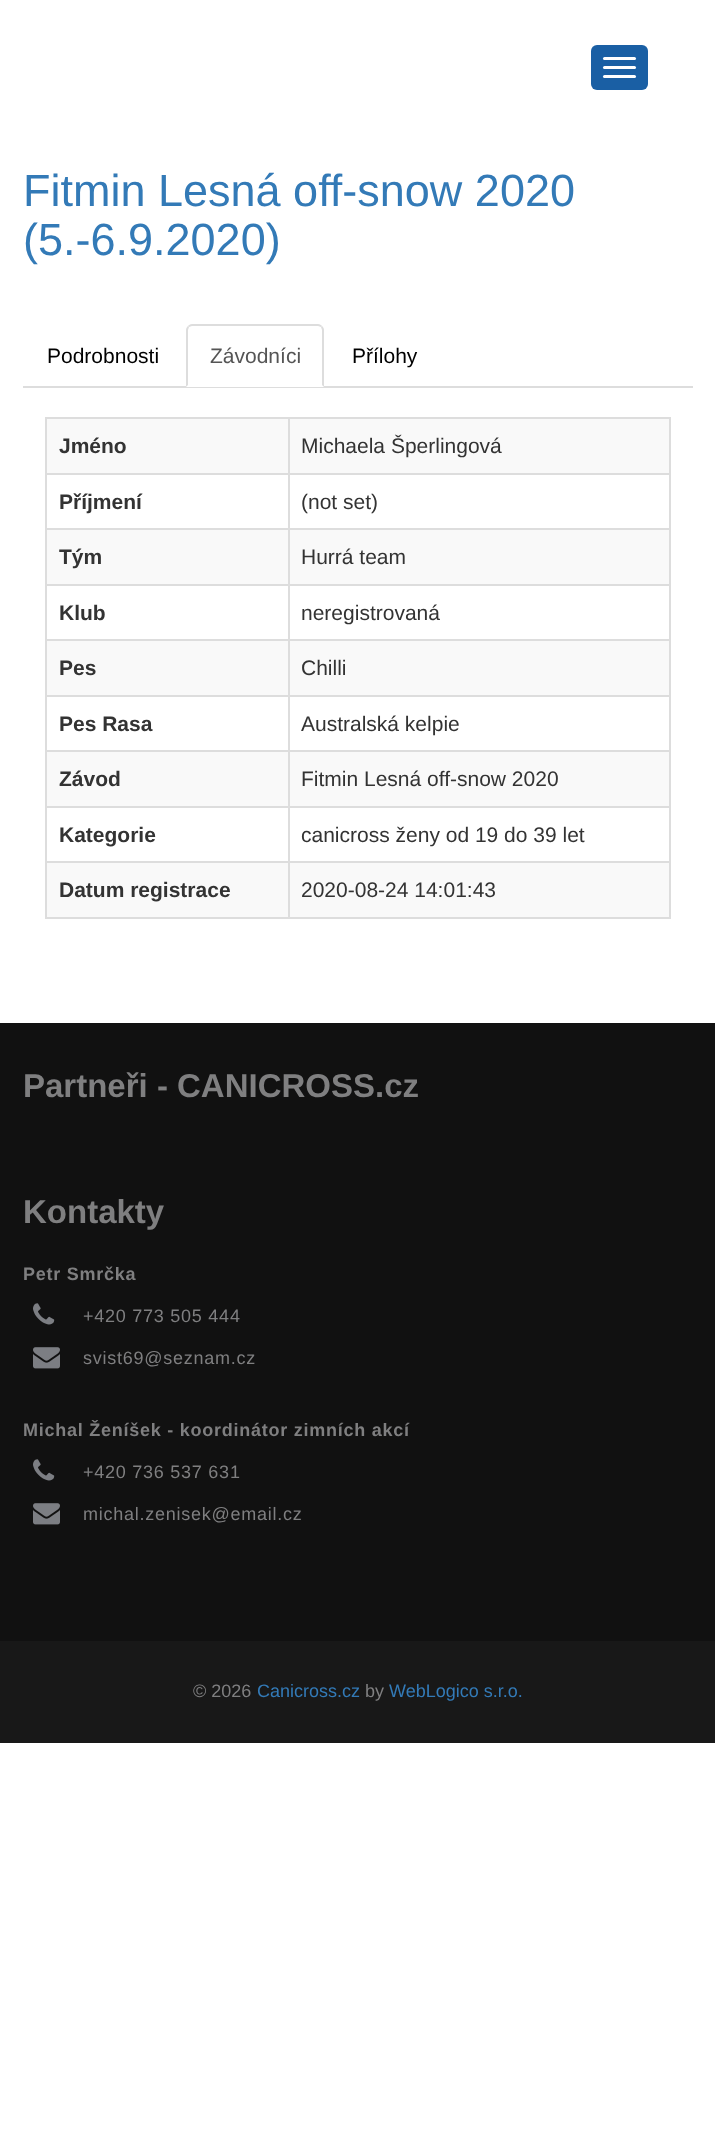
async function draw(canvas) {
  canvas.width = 715;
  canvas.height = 2149;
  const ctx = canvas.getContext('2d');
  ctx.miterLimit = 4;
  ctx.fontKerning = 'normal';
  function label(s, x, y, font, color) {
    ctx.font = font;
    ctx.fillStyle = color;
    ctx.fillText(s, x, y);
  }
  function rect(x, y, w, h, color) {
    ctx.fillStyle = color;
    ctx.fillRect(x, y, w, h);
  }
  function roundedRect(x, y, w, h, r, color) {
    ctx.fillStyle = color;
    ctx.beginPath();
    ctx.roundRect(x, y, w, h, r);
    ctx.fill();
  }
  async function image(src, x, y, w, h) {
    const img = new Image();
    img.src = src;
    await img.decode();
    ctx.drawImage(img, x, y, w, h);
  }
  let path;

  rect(0, 0, 715, 2149, '#fff');
  roundedRect(591, 45, 57, 45, 6, '#1a5fa4');
  roundedRect(603, 57, 33, 3, 1.5, '#fff');
  roundedRect(603, 66, 33, 3, 1.5, '#fff');
  roundedRect(603, 75, 33, 3, 1.5, '#fff');
  label('Fitmin Lesná off-snow 2020', 23, 206, '45px Liberation Sans', '#337ab7');
  label('(5.-6.9.2020)', 23, 255, '45px Liberation Sans', '#337ab7');
  rect(23, 386, 670, 2, '#ddd');
  label('Podrobnosti', 47, 363, '21px Liberation Sans', '#000');
  ctx.fillStyle = '#fff';
  ctx.beginPath();
  ctx.roundRect(186, 324, 138, 63, [6, 6, 0, 0]);
  ctx.fill();
  ctx.fillStyle = '#ddd';
  path = new Path2D('M192 324C190 324 189 325 188 326L189 327L192 326H297H318L321 327L322 326C321 325 320 324 318 324Z');
  ctx.fill(path);
  path = new Path2D('M324 387V330C324 328 323 327 322 326L321 327L322 330V385Z');
  ctx.fill(path);
  path = new Path2D('M186 387L188 385V330L189 327L188 326C187 327 186 328 186 330Z');
  ctx.fill(path);
  label('Závodníci', 210, 363, '21px Liberation Sans', '#555');
  label('Přílohy', 352, 363, '21px Liberation Sans', '#000');
  rect(45, 417, 626, 2, '#ddd');
  rect(669, 417, 2, 501, '#ddd');
  rect(45, 917, 626, 2, '#ddd');
  rect(45, 417, 2, 501, '#ddd');
  rect(47, 419, 622, 54, '#f9f9f9');
  label('Jméno', 59, 453, 'bold 21px Liberation Sans', '#333');
  rect(288, 473, 383, 2, '#ddd');
  rect(288, 528, 383, 2, '#ddd');
  rect(47, 530, 622, 54, '#f9f9f9');
  rect(288, 584, 383, 2, '#ddd');
  rect(288, 639, 383, 2, '#ddd');
  rect(47, 641, 622, 54, '#f9f9f9');
  rect(288, 695, 383, 2, '#ddd');
  rect(288, 750, 383, 2, '#ddd');
  rect(47, 752, 622, 54, '#f9f9f9');
  rect(288, 806, 383, 2, '#ddd');
  rect(288, 861, 383, 2, '#ddd');
  rect(47, 863, 622, 54, '#f9f9f9');
  rect(288, 861, 2, 57, '#ddd');
  rect(45, 861, 245, 2, '#ddd');
  rect(288, 806, 2, 57, '#ddd');
  rect(45, 806, 245, 2, '#ddd');
  rect(288, 750, 2, 57, '#ddd');
  rect(45, 750, 245, 2, '#ddd');
  rect(288, 695, 2, 57, '#ddd');
  rect(45, 695, 245, 2, '#ddd');
  rect(288, 639, 2, 57, '#ddd');
  rect(45, 639, 245, 2, '#ddd');
  rect(288, 584, 2, 57, '#ddd');
  rect(45, 584, 245, 2, '#ddd');
  rect(288, 528, 2, 57, '#ddd');
  rect(45, 528, 245, 2, '#ddd');
  rect(288, 473, 2, 57, '#ddd');
  rect(45, 473, 245, 2, '#ddd');
  rect(288, 417, 2, 57, '#ddd');
  label('Michaela Šperlingová', 301, 453, '21px Liberation Sans', '#333');
  label('Příjmení', 59, 509, 'bold 21px Liberation Sans', '#333');
  label('(not set)', 301, 509, '21px Liberation Sans', '#333');
  label('Tým', 59, 564, 'bold 21px Liberation Sans', '#333');
  label('Hurrá team', 301, 564, '21px Liberation Sans', '#333');
  label('Klub', 59, 620, 'bold 21px Liberation Sans', '#333');
  label('neregistrovaná', 301, 620, '21px Liberation Sans', '#333');
  label('Pes', 59, 675, 'bold 21px Liberation Sans', '#333');
  label('Chilli', 301, 675, '21px Liberation Sans', '#333');
  label('Pes Rasa', 59, 731, 'bold 21px Liberation Sans', '#333');
  label('Australská kelpie', 301, 731, '21px Liberation Sans', '#333');
  label('Závod', 59, 786, 'bold 21px Liberation Sans', '#333');
  label('Fitmin Lesná off-snow 2020', 301, 786, '21px Liberation Sans', '#333');
  label('Kategorie', 59, 842, 'bold 21px Liberation Sans', '#333');
  label('canicross ženy od 19 do 39 let', 301, 842, '21px Liberation Sans', '#333');
  label('Datum registrace', 59, 897, 'bold 21px Liberation Sans', '#333');
  label('2020-08-24 14:01:43', 301, 897, '21px Liberation Sans', '#333');
  rect(0, 1023, 715, 618, '#111');
  label('Partneři - CANICROSS.cz', 23, 1097, 'bold 33px Liberation Sans', '#7f7f80');
  label('Kontakty', 23, 1223, 'bold 33px Liberation Sans', '#7f7f80');
  ctx.letterSpacing = '0.75px';
  label('Petr Smrčka', 23, 1280, 'bold 18px Liberation Sans', '#7f7f80');
  await image('assets/img1.png', 33, 1303, 22, 22);
  label('+420 773 505 444', 83, 1322, '18px Liberation Sans', '#7f7f80');
  await image('assets/img2.png', 33, 1347, 27, 22);
  label('svist69@seznam.cz', 83, 1364, '18px Liberation Sans', '#7f7f80');
  label('Michal Ženíšek - koordinátor zimních akcí', 23, 1436, 'bold 18px Liberation Sans', '#7f7f80');
  await image('assets/img1.png', 33, 1459, 22, 22);
  label('+420 736 537 631', 83, 1478, '18px Liberation Sans', '#7f7f80');
  await image('assets/img2.png', 33, 1503, 27, 22);
  label('michal.zenisek@email.cz', 83, 1520, '18px Liberation Sans', '#7f7f80');
  rect(0, 1641, 715, 102, '#181818');
  ctx.letterSpacing = '0px';
  label('© 2026', 193, 1697, '18px Liberation Sans', '#7f7f80');
  label('Canicross.cz', 257, 1697, '18px Liberation Sans', '#337ab7');
  label('by', 365, 1697, '18px Liberation Sans', '#7f7f80');
  label('WebLogico s.r.o.', 389, 1697, '18px Liberation Sans', '#337ab7');
}

draw(document.querySelector('canvas'));
